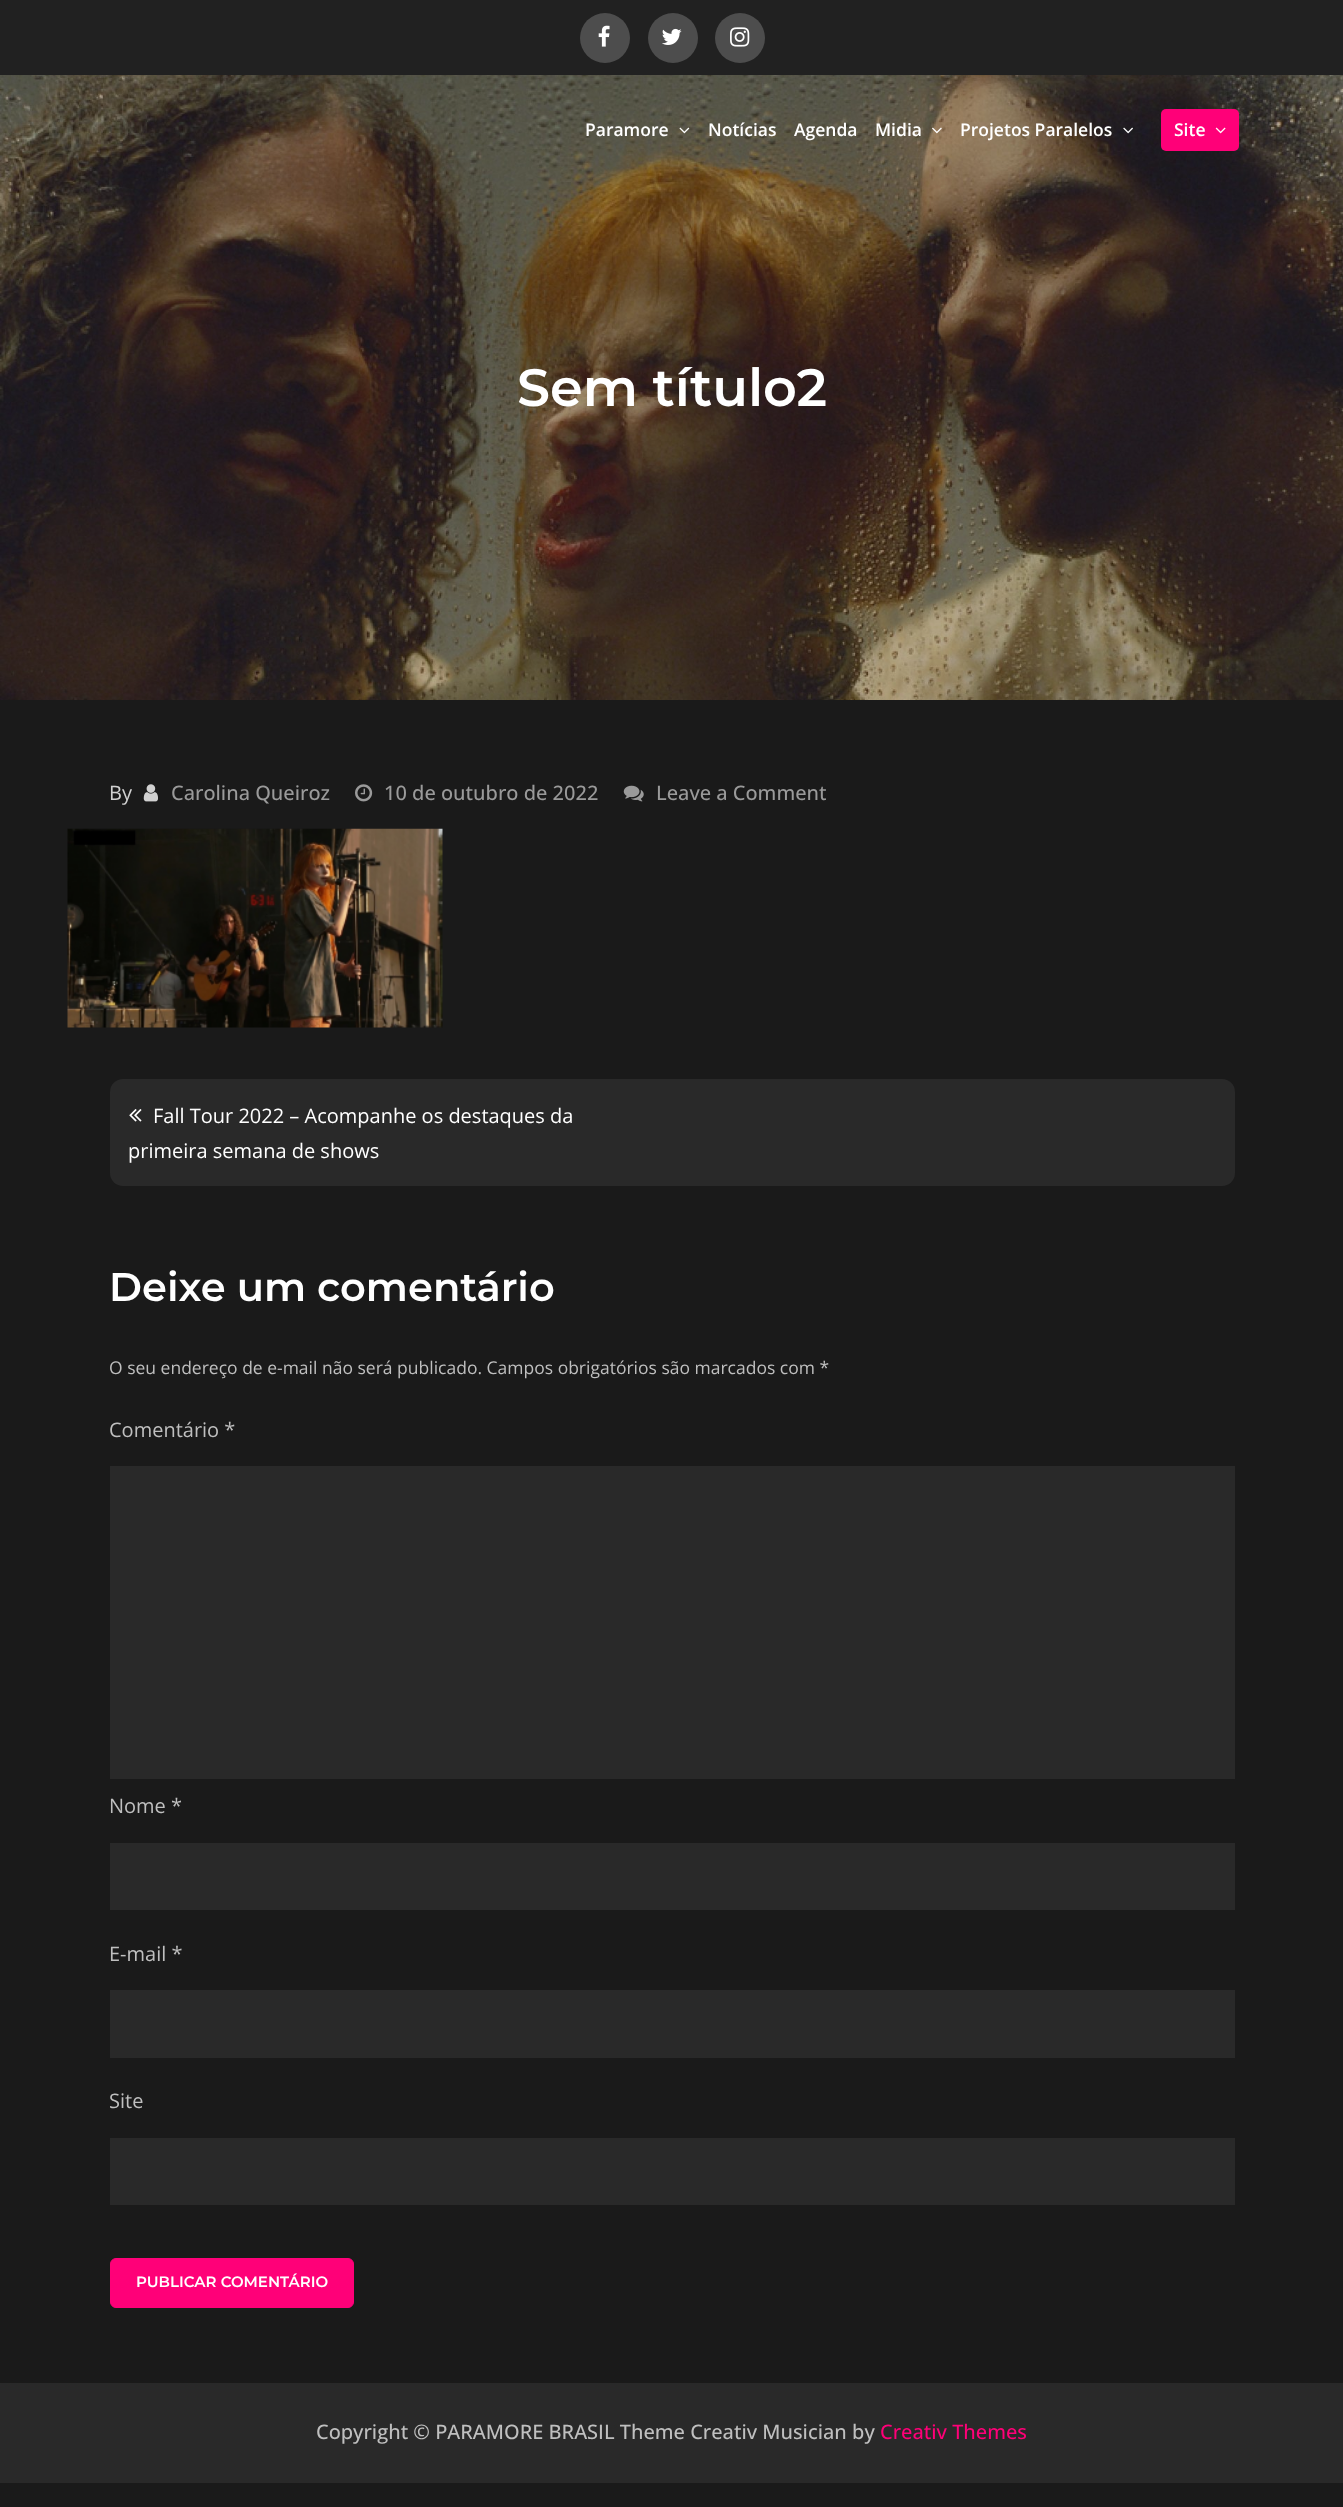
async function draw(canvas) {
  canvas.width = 1343;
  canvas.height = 2507;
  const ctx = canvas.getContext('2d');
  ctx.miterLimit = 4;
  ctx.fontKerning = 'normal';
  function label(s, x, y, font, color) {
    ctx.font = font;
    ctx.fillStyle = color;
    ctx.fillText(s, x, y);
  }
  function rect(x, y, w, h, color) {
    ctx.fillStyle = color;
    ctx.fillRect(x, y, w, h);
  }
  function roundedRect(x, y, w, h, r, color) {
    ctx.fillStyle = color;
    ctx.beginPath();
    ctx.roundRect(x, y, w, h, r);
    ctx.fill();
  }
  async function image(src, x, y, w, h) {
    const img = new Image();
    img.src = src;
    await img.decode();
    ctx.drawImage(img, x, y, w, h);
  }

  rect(0, 0, 1343, 2507, '#1a1a1a');
  rect(0, 0, 1343, 75, '#212121');
  ctx.fillStyle = '#4d4d4d';
  ctx.beginPath();
  ctx.arc(605, 38, 25, 0, 2 * Math.PI);
  ctx.fill();
  await image('assets/img1.png', 598, 25, 12, 22);
  ctx.beginPath();
  ctx.arc(673, 38, 25, 0, 2 * Math.PI);
  ctx.fill();
  await image('assets/img2.png', 662, 28, 20, 17);
  ctx.beginPath();
  ctx.arc(740, 38, 25, 0, 2 * Math.PI);
  ctx.fill();
  await image('assets/img3.png', 730, 27, 20, 20);
  await image('assets/img8.png', 0, 75, 1343, 625);
  label('Paramore', 585, 136, '600 17.5px Open Sans', '#fff');
  await image('assets/img4.png', 679, 127, 11, 7);
  label('Notícias', 708, 136, '600 17.5px Open Sans', '#fff');
  label('Agenda', 794, 136, '600 17.5px Open Sans', '#fff');
  label('Midia', 875, 136, '600 17.5px Open Sans', '#fff');
  await image('assets/img5.png', 932, 127, 10, 7);
  label('Projetos Paralelos', 960, 136, '600 17.5px Open Sans', '#fff');
  await image('assets/img6.png', 1123, 127, 10, 7);
  roundedRect(1161, 109, 78, 42, 5, '#ff0078');
  label('Site', 1174, 136, '600 17.5px Open Sans', '#fff');
  await image('assets/img7.png', 1215, 127, 11, 7);
  label('Sem título2', 517, 406, '600 52.5px Montserrat', '#fff');
  label('By', 109, 800, '20px Open Sans', '#d1d1d1');
  await image('assets/img9.png', 143, 784, 15, 18);
  label('Carolina Queiroz', 171, 800, '500 20px Open Sans', '#9a9a9a');
  await image('assets/img10.png', 355, 784, 18, 18);
  label('10 de outubro de 2022', 384, 800, '500 20px Open Sans', '#9a9a9a');
  await image('assets/img11.png', 623, 785, 21, 17);
  label('Leave a Comment', 656, 800, '500 20px Open Sans', '#9a9a9a');
  await image('assets/img12.png', 67, 828, 376, 200);
  roundedRect(110, 1079, 1125, 107, 13, '#292929');
  await image('assets/img13.png', 129, 1109, 13, 13);
  label('Fall Tour 2022 – Acompanhe os destaques da', 153, 1123, '20px Open Sans', '#fff');
  label('primeira semana de shows', 128, 1158, '20px Open Sans', '#fff');
  label('Deixe um comentário', 109, 1301, '600 40px Montserrat', '#fff');
  label('O seu endereço de e-mail não será publicado. Campos obrigatórios são marcados com *', 109, 1374, '17.5px Open Sans', '#bfbfbf');
  label('Comentário *', 109, 1437, '20px Open Sans', '#bfbfbf');
  rect(110, 1466, 1125, 313, '#292929');
  label('Nome *', 109, 1813, '20px Open Sans', '#bfbfbf');
  rect(110, 1843, 1125, 67, '#292929');
  label('E-mail *', 109, 1961, '20px Open Sans', '#bfbfbf');
  rect(110, 1990, 1125, 68, '#292929');
  label('Site', 109, 2108, '20px Open Sans', '#bfbfbf');
  rect(110, 2138, 1125, 67, '#292929');
  ctx.fillStyle = '#ff0078';
  ctx.beginPath();
  ctx.roundRect(110.5, 2258.5, 243, 49, 5.5);
  ctx.fill();
  ctx.strokeStyle = '#ff0078';
  ctx.stroke();
  label('PUBLICAR COMENTÁRIO', 136, 2287, '600 15px Montserrat', '#fff');
  rect(0, 2383, 1343, 100, '#292929');
  label('Copyright © PARAMORE BRASIL Theme Creativ Musician by', 316, 2439, '500 20px Open Sans', '#bfbfbf');
  label('Creativ Themes', 880, 2439, '500 20px Open Sans', '#ff0078');
}

draw(document.querySelector('canvas'));
